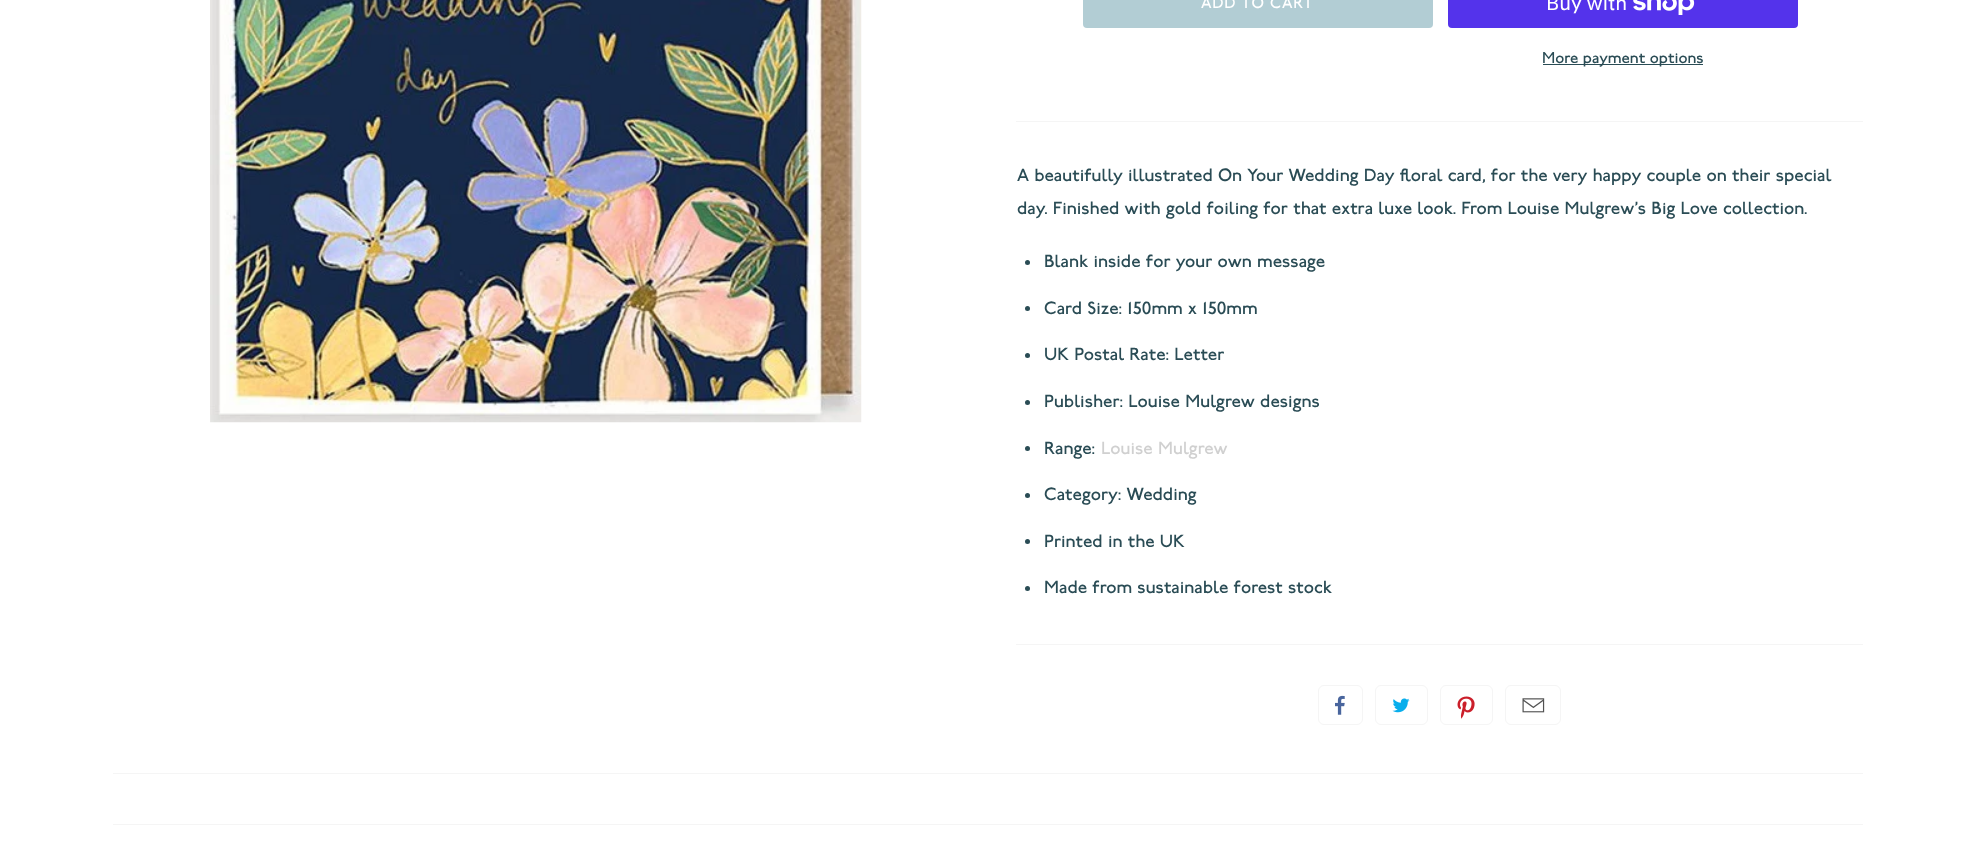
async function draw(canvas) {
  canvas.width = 1975;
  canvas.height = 847;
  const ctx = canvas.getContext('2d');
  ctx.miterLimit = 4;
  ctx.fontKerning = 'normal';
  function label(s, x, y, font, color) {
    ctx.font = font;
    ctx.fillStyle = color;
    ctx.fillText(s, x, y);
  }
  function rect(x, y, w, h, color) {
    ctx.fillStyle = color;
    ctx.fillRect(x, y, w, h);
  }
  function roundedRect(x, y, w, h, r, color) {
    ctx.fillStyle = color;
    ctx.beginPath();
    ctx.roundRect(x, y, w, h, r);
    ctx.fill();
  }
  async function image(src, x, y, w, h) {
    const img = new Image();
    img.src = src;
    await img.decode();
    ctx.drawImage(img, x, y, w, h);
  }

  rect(0, 0, 1975, 847, '#fff');
  await image('assets/img1.png', 210, 0, 652, 423);
  roundedRect(1083, -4, 350, 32, 4, '#b2cdd4');
  ctx.letterSpacing = '0.75px';
  label('ADD TO CART', 1201, 8, '16.5px "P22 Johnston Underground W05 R"', '#fff');
  roundedRect(1448, -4, 350, 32, 4, '#5433eb');
  ctx.letterSpacing = '0px';
  label('Buy with', 1546, 10, '20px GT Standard', '#fff');
  await image('assets/img2.png', 1633, 0, 62, 15);
  rect(1543, 64, 160, 1, '#2a4c55');
  label('More payment options', 1542, 63, '16.5px "P22 Johnston Underground W05 R"', '#2a4c55');
  rect(1016, 121, 847, 1, '#f5f5f5');
  rect(1016, 644, 847, 1, '#f5f5f5');
  label('A beautifully illustrated On Your Wedding Day floral card, for the very happy couple on their special', 1017, 181, '18.75px "P22 Johnston Underground W05 R"', '#2a4c55');
  label('day. Finished with gold foiling for that extra luxe look. From Louise Mulgrew\'s Big Love collection.', 1017, 214, '18.75px "P22 Johnston Underground W05 R"', '#2a4c55');
  ctx.beginPath();
  ctx.arc(1027.5, 262.5, 2.5, 0, 2 * Math.PI);
  ctx.fill();
  label('Blank inside for your own message', 1044, 267, '18.75px "P22 Johnston Underground W05 R"', '#2a4c55');
  ctx.beginPath();
  ctx.arc(1027.5, 308.5, 2.5, 0, 2 * Math.PI);
  ctx.fill();
  label('Card Size: 150mm x 150mm', 1044, 314, '18.75px "P22 Johnston Underground W05 R"', '#2a4c55');
  ctx.beginPath();
  ctx.arc(1027.5, 355.5, 2.5, 0, 2 * Math.PI);
  ctx.fill();
  label('UK Postal Rate: Letter', 1044, 360, '18.75px "P22 Johnston Underground W05 R"', '#2a4c55');
  ctx.beginPath();
  ctx.arc(1027.5, 402.5, 2.5, 0, 2 * Math.PI);
  ctx.fill();
  label('Publisher: Louise Mulgrew designs', 1044, 407, '18.75px "P22 Johnston Underground W05 R"', '#2a4c55');
  ctx.beginPath();
  ctx.arc(1027.5, 448.5, 2.5, 0, 2 * Math.PI);
  ctx.fill();
  label('Range:', 1044, 454, '18.75px "P22 Johnston Underground W05 R"', '#2a4c55');
  label('Louise Mulgrew', 1101, 454, '18.75px "P22 Johnston Underground W05 R"', '#d0d0d0');
  ctx.fillStyle = '#2a4c55';
  ctx.beginPath();
  ctx.arc(1027.5, 495.5, 2.5, 0, 2 * Math.PI);
  ctx.fill();
  label('Category: Wedding', 1044, 500, '18.75px "P22 Johnston Underground W05 R"', '#2a4c55');
  ctx.beginPath();
  ctx.arc(1027.5, 541.5, 2.5, 0, 2 * Math.PI);
  ctx.fill();
  label('Printed in the UK', 1044, 547, '18.75px "P22 Johnston Underground W05 R"', '#2a4c55');
  ctx.beginPath();
  ctx.arc(1027.5, 588.5, 2.5, 0, 2 * Math.PI);
  ctx.fill();
  label('Made from sustainable forest stock', 1044, 593, '18.75px "P22 Johnston Underground W05 R"', '#2a4c55');
  ctx.beginPath();
  ctx.roundRect(1318.5, 685.5, 44, 39, 5.5);
  ctx.strokeStyle = '#f5f5f5';
  ctx.stroke();
  await image('assets/img3.png', 1335, 695, 10, 20);
  ctx.beginPath();
  ctx.roundRect(1375.5, 685.5, 52, 39, 5.5);
  ctx.stroke();
  await image('assets/img4.png', 1392, 698, 18, 15);
  ctx.beginPath();
  ctx.roundRect(1440.5, 685.5, 52, 39, 5.5);
  ctx.stroke();
  await image('assets/img5.png', 1457, 696, 18, 23);
  ctx.beginPath();
  ctx.roundRect(1505.5, 685.5, 55, 39, 5.5);
  ctx.stroke();
  await image('assets/img6.png', 1522, 698, 23, 15);
  rect(113, 773, 1750, 1, '#f5f5f5');
  rect(113, 824, 1750, 1, '#f5f5f5');
}

draw(document.querySelector('canvas'));
